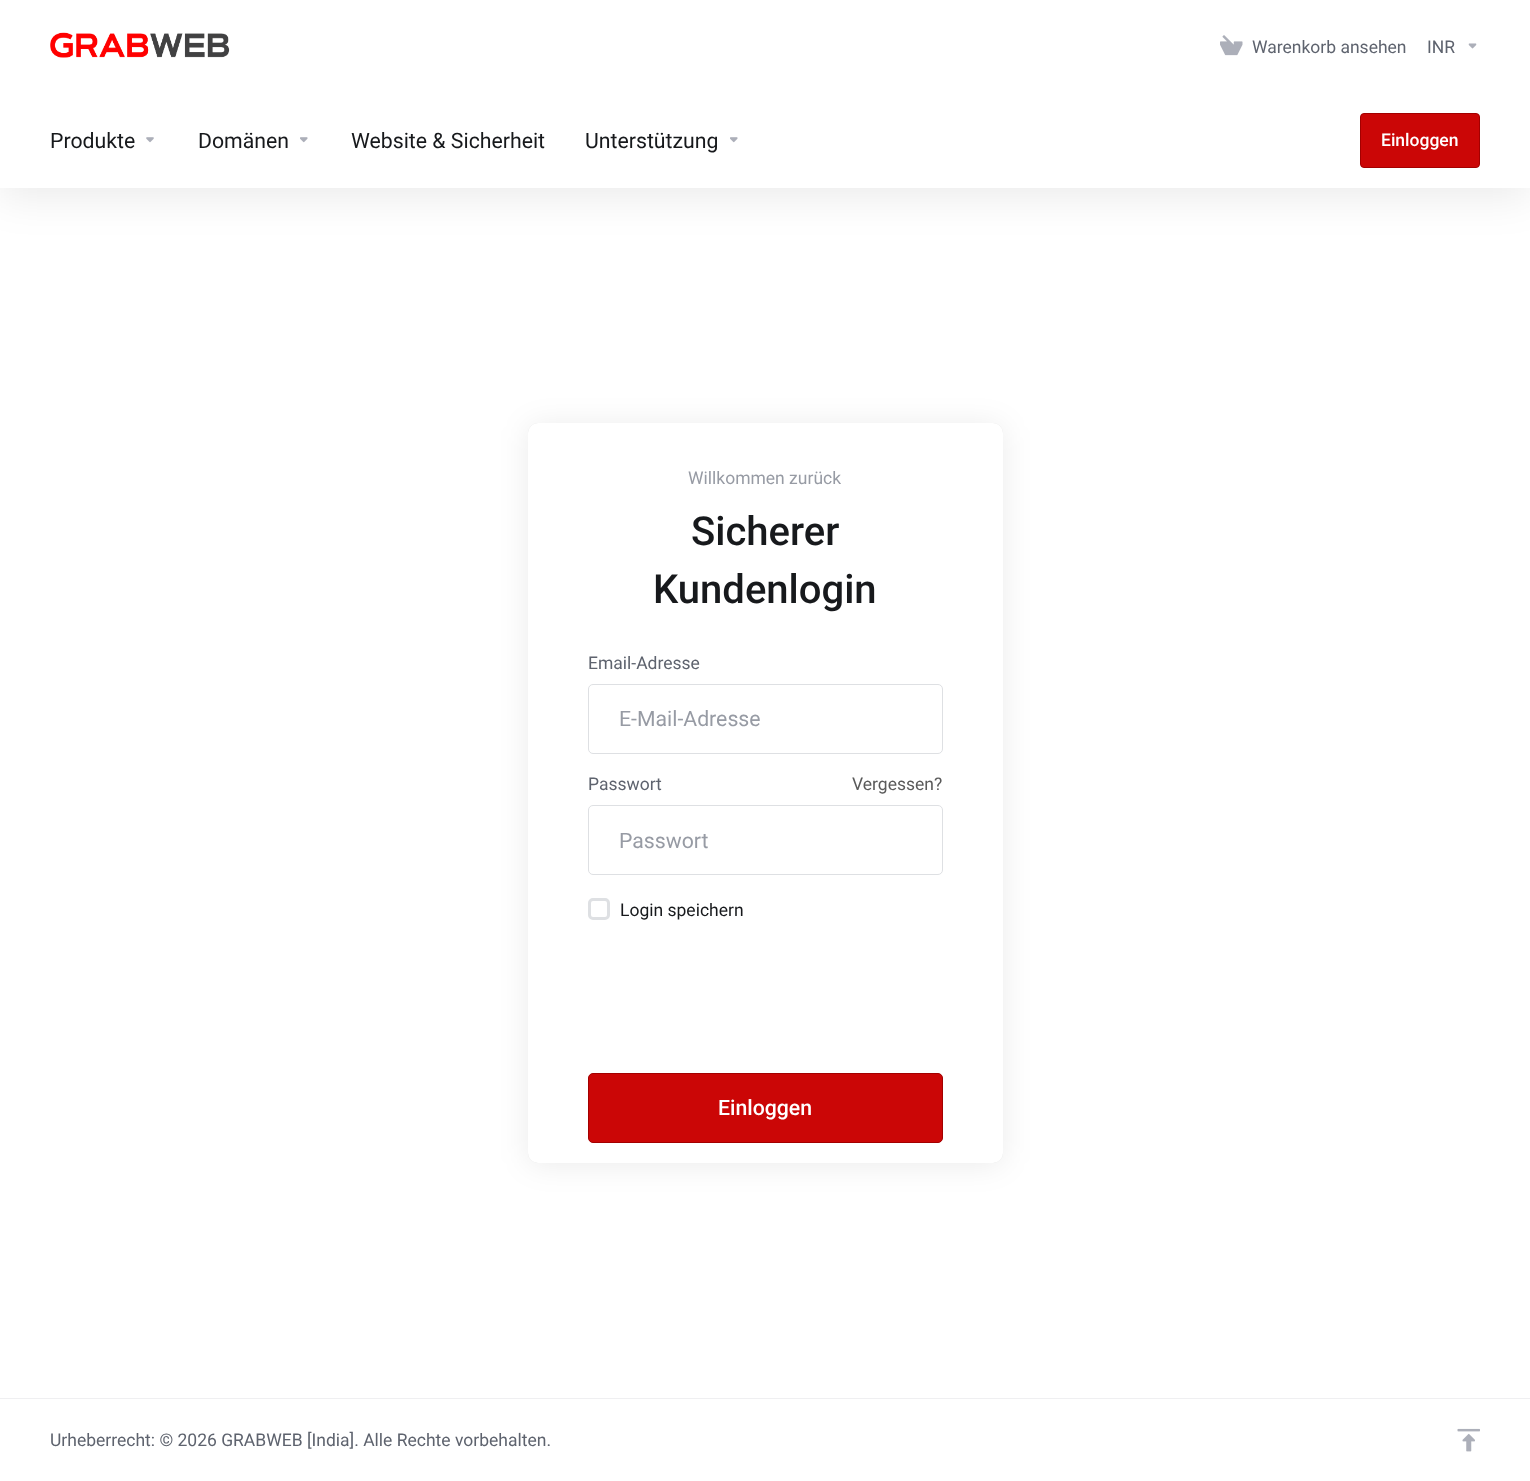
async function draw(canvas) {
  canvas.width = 1530;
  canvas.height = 1481;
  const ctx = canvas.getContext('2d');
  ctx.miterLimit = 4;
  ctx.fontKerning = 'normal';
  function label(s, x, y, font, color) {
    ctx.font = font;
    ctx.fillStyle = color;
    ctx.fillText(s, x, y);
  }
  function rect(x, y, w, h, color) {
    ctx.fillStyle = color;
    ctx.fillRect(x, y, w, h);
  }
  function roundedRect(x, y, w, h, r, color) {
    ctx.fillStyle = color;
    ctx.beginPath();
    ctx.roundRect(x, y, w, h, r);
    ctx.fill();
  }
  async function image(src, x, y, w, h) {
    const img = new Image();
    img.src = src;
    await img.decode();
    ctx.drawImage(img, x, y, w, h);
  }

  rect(0, 0, 1530, 1481, '#fff');
  ctx.fillStyle = '#00000014';
  ctx.filter = 'blur(20px)';
  ctx.beginPath();
  ctx.rect(0, 10, 1530, 188);
  ctx.fill();
  ctx.filter = 'none';
  rect(0, 0, 1530, 188, '#fff');
  await image('assets/img1.png', 50, 32, 180, 26);
  await image('assets/img2.png', 1220, 35, 23, 21);
  label('Warenkorb ansehen', 1252, 53, '17.5px Roboto', '#5e636e');
  label('INR', 1427, 53, '17.5px Roboto', '#5e636e');
  await image('assets/img3.png', 1468, 43, 9, 6);
  label('Produkte', 50, 148, '21.25px Roboto', '#17191c');
  await image('assets/img4.png', 146, 137, 8, 6);
  label('Domänen', 198, 148, '21.25px Roboto', '#17191c');
  await image('assets/img5.png', 300, 137, 8, 6);
  label('Website & Sicherheit', 351, 148, '21.25px Roboto', '#17191c');
  label('Unterstützung', 585, 148, '21.25px Roboto', '#17191c');
  await image('assets/img5.png', 730, 137, 8, 6);
  ctx.fillStyle = '#cb0606';
  ctx.beginPath();
  ctx.roundRect(1360.5, 113.5, 119, 54, 3.5);
  ctx.fill();
  ctx.strokeStyle = '#a30000';
  ctx.stroke();
  label('Einloggen', 1381, 146, '500 17.5px Roboto', '#fff');
  ctx.fillStyle = '#00000014';
  ctx.filter = 'blur(15px)';
  ctx.beginPath();
  ctx.roundRect(528, 425, 475, 740, 10);
  ctx.fill();
  ctx.filter = 'none';
  ctx.fillStyle = '#0000001a';
  ctx.filter = 'blur(0.5px)';
  ctx.beginPath();
  ctx.roundRect(528, 423, 475, 740, 10);
  ctx.fill();
  ctx.filter = 'none';
  roundedRect(528, 423, 475, 740, 10, '#fff');
  label('Willkommen zurück', 688, 484, '17.5px Roboto', '#979ba4');
  label('Sicherer', 691, 545, '500 40px Roboto', '#17191c');
  label('Kundenlogin', 653, 603, '500 40px Roboto', '#17191c');
  label('Email-Adresse', 588, 669, '17.5px Roboto', '#5e636e');
  ctx.beginPath();
  ctx.roundRect(588.5, 684.5, 354, 69, 4.5);
  ctx.strokeStyle = '#dee0e3';
  ctx.stroke();
  label('E-Mail-Adresse', 619, 726, '21.25px Roboto', '#979ba4');
  label('Passwort', 588, 790, '17.5px Roboto', '#5e636e');
  label('Vergessen?', 852, 790, '17.5px Roboto', '#5a5a5a');
  ctx.beginPath();
  ctx.roundRect(588.5, 805.5, 354, 69, 4.5);
  ctx.stroke();
  label('Passwort', 619, 848, '21.25px Roboto', '#979ba4');
  ctx.beginPath();
  ctx.roundRect(589.5, 899.5, 19, 19, 3.5);
  ctx.lineWidth = 3;
  ctx.stroke();
  label('Login speichern', 620, 916, '17.5px Roboto', '#17191c');
  ctx.fillStyle = '#cb0606';
  ctx.beginPath();
  ctx.roundRect(588.5, 1073.5, 354, 69, 4.5);
  ctx.fill();
  ctx.strokeStyle = '#a30000';
  ctx.lineWidth = 1;
  ctx.stroke();
  label('Einloggen', 718, 1115, '500 21.25px Roboto', '#fff');
  rect(0, 1398, 1530, 1, '#efeff1');
  label('Urheberrecht: © 2026 GRABWEB [India]. Alle Rechte vorbehalten.', 50, 1446, '17.5px Roboto', '#5e636e');
  await image('assets/img6.png', 1457, 1428, 23, 24);
}

draw(document.querySelector('canvas'));
